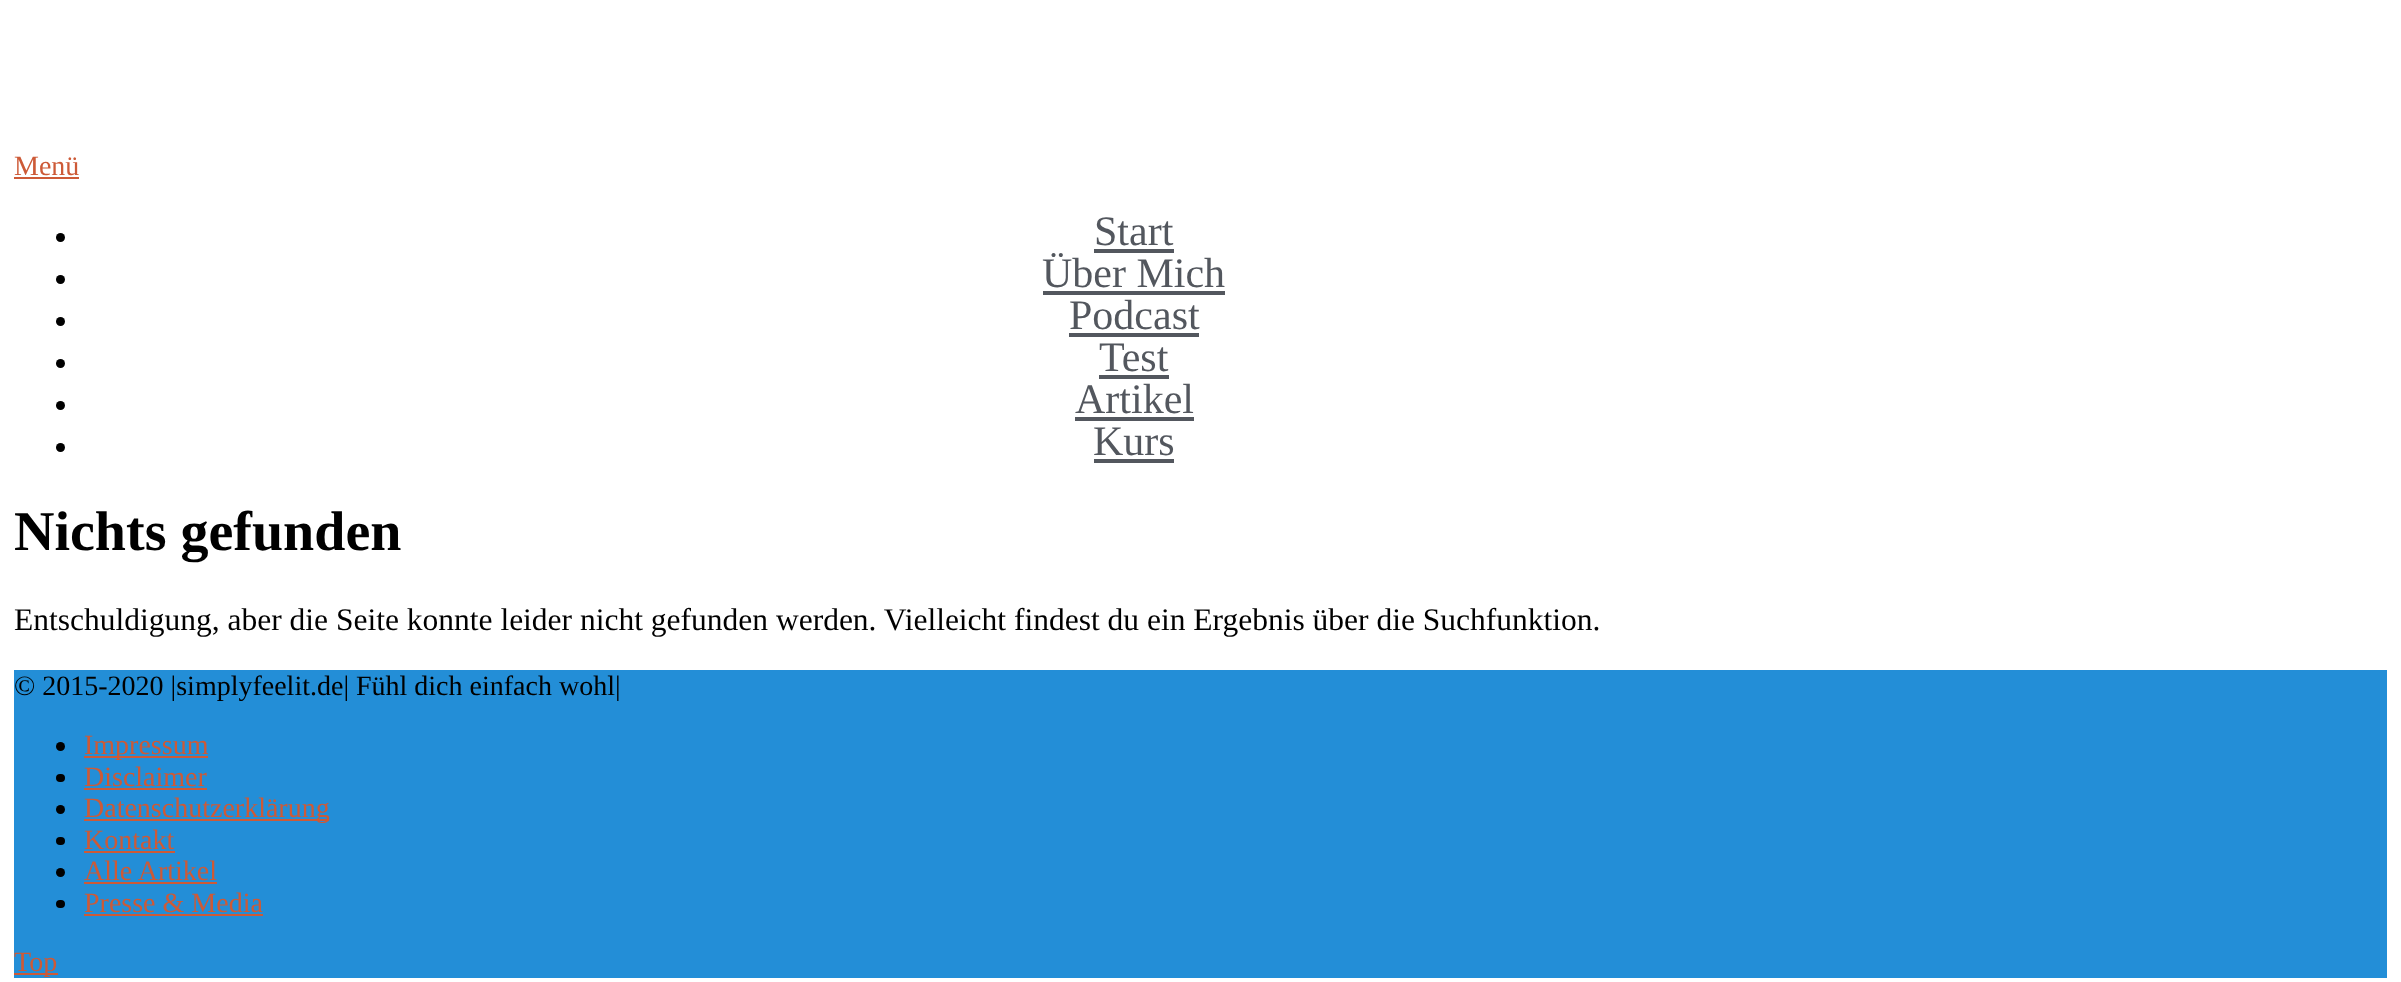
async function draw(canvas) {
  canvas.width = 2401;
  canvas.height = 982;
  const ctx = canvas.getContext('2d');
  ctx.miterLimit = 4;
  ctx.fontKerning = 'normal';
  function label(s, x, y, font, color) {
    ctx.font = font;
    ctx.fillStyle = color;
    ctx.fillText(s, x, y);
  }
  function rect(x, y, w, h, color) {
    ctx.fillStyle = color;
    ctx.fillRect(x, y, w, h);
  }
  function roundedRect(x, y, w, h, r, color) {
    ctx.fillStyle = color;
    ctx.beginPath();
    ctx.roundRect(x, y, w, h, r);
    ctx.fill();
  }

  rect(0, 0, 2401, 982, '#fff');
  label('Menü', 14, 175, '28px Liberation Serif', '#cd5a37');
  rect(14, 177, 65, 2, '#cd5a37');
  ctx.fillStyle = '#000';
  ctx.beginPath();
  ctx.arc(60.5, 237.5, 4.5, 0, 2 * Math.PI);
  ctx.fill();
  label('Start', 1094, 245, '42px Liberation Serif', '#53575e');
  rect(1094, 249, 80, 4, '#53575e');
  ctx.fillStyle = '#000';
  ctx.beginPath();
  ctx.arc(60.5, 279.5, 4.5, 0, 2 * Math.PI);
  ctx.fill();
  label('Über Mich', 1042, 287, '42px Liberation Serif', '#53575e');
  rect(1043, 291, 182, 4, '#53575e');
  ctx.fillStyle = '#000';
  ctx.beginPath();
  ctx.arc(60.5, 321.5, 4.5, 0, 2 * Math.PI);
  ctx.fill();
  label('Podcast', 1069, 329, '42px Liberation Serif', '#53575e');
  rect(1069, 333, 130, 4, '#53575e');
  ctx.fillStyle = '#000';
  ctx.beginPath();
  ctx.arc(60.5, 363.5, 4.5, 0, 2 * Math.PI);
  ctx.fill();
  label('Test', 1099, 371, '42px Liberation Serif', '#53575e');
  rect(1099, 375, 70, 4, '#53575e');
  ctx.fillStyle = '#000';
  ctx.beginPath();
  ctx.arc(60.5, 405.5, 4.5, 0, 2 * Math.PI);
  ctx.fill();
  label('Artikel', 1075, 413, '42px Liberation Serif', '#53575e');
  rect(1075, 417, 119, 4, '#53575e');
  ctx.fillStyle = '#000';
  ctx.beginPath();
  ctx.arc(60.5, 447.5, 4.5, 0, 2 * Math.PI);
  ctx.fill();
  label('Kurs', 1093, 455, '42px Liberation Serif', '#53575e');
  rect(1094, 459, 80, 4, '#53575e');
  label('Nichts gefunden', 14, 550, 'bold 56px Liberation Serif', '#000');
  label('Entschuldigung, aber die Seite konnte leider nicht gefunden werden. Vielleicht findest du ein Ergebnis über die Suchfunktion.', 14, 630, '31.5px Liberation Serif', '#000');
  rect(14, 670, 2373, 308, '#238ed7');
  label('© 2015-2020 |simplyfeelit.de| Fühl dich einfach wohl|', 14, 695, '28px Liberation Serif', '#000');
  ctx.beginPath();
  ctx.arc(60.5, 746.5, 4.5, 0, 2 * Math.PI);
  ctx.fill();
  rect(84, 756, 124, 2, '#cd5a37');
  label('Impressum', 84, 754, '28px Liberation Serif', '#cd5a37');
  roundedRect(56, 774, 9, 8, 4, '#000');
  label('Disclaimer', 84, 786, '28px Liberation Serif', '#cd5a37');
  rect(84, 788, 123, 2, '#cd5a37');
  ctx.fillStyle = '#000';
  ctx.beginPath();
  ctx.arc(60.5, 809.5, 4.5, 0, 2 * Math.PI);
  ctx.fill();
  rect(84, 819, 245, 2, '#cd5a37');
  label('Datenschutzerklärung', 84, 817, '28px Liberation Serif', '#cd5a37');
  roundedRect(56, 837, 9, 8, 4, '#000');
  label('Kontakt', 84, 849, '28px Liberation Serif', '#cd5a37');
  rect(84, 851, 91, 2, '#cd5a37');
  ctx.fillStyle = '#000';
  ctx.beginPath();
  ctx.arc(60.5, 872.5, 4.5, 0, 2 * Math.PI);
  ctx.fill();
  label('Alle Artikel', 84, 880, '28px Liberation Serif', '#cd5a37');
  rect(84, 882, 133, 2, '#cd5a37');
  roundedRect(56, 900, 9, 8, 4, '#000');
  label('Presse & Media', 84, 912, '28px Liberation Serif', '#cd5a37');
  rect(84, 914, 179, 2, '#cd5a37');
  rect(14, 973, 44, 2, '#cd5a37');
  label('Top', 14, 971, '28px Liberation Serif', '#cd5a37');
}

draw(document.querySelector('canvas'));
